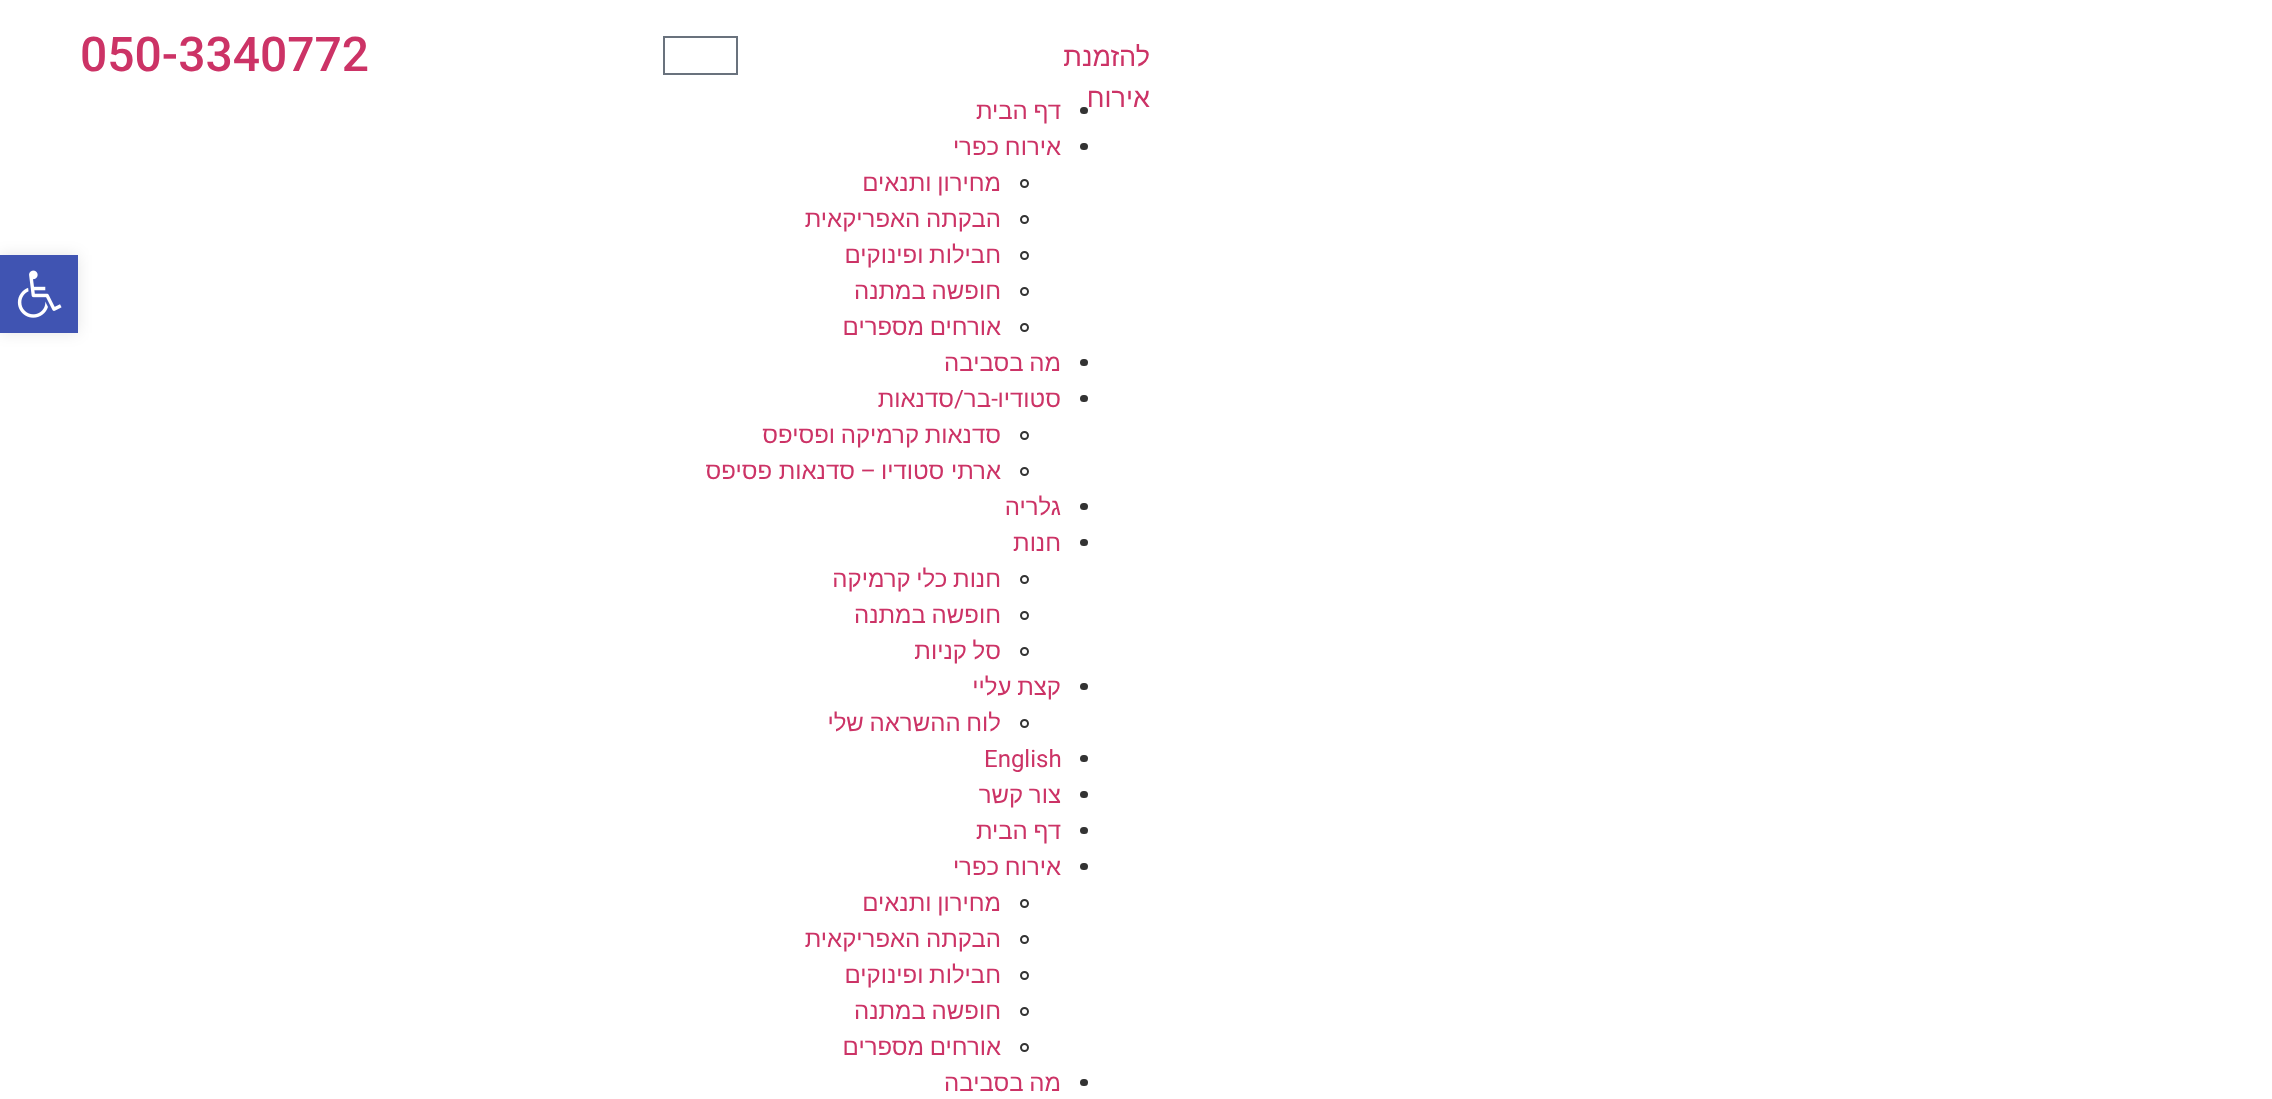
async function draw(canvas) {
  canvas.width = 2272;
  canvas.height = 1099;
  const ctx = canvas.getContext('2d');
  ctx.miterLimit = 4;
  ctx.fontKerning = 'normal';
  function label(s, x, y, font, color) {
    ctx.font = font;
    ctx.fillStyle = color;
    ctx.fillText(s, x, y);
  }
  function rect(x, y, w, h, color) {
    ctx.fillStyle = color;
    ctx.fillRect(x, y, w, h);
  }
  function roundedRect(x, y, w, h, r, color) {
    ctx.fillStyle = color;
    ctx.beginPath();
    ctx.roundRect(x, y, w, h, r);
    ctx.fill();
  }
  async function image(src, x, y, w, h) {
    const img = new Image();
    img.src = src;
    await img.decode();
    ctx.drawImage(img, x, y, w, h);
  }

  rect(0, 0, 2272, 1099, '#fff');
  ctx.direction = 'rtl';
  label('להזמנת', 1150, 66, '27px Liberation Sans', '#c36');
  label('אירוח', 1150, 107, '27px Liberation Sans', '#c36');
  ctx.strokeStyle = '#69727d';
  ctx.lineWidth = 2;
  ctx.strokeRect(664, 37, 73, 37);
  ctx.direction = 'ltr';
  label('050-3340772', 80, 71, '500 48px Roboto', '#c36');
  roundedRect(1080, 107, 8, 7, 3.5, '#333');
  ctx.wordSpacing = '-1px';
  ctx.direction = 'rtl';
  label('דף הבית', 1061, 119, '24px Liberation Sans', '#c36');
  roundedRect(1080, 143, 8, 7, 3.5, '#333');
  label('אירוח כפרי', 1061, 155, '24px Liberation Sans', '#c36');
  ctx.beginPath();
  ctx.arc(1024.5, 183.5, 3.5, 0, 2 * Math.PI);
  ctx.strokeStyle = '#333';
  ctx.stroke();
  label('מחירון ותנאים', 1001, 191, '24px Liberation Sans', '#c36');
  ctx.beginPath();
  ctx.arc(1024.5, 219.5, 3.5, 0, 2 * Math.PI);
  ctx.stroke();
  label('הבקתה האפריקאית', 1001, 227, '24px Liberation Sans', '#c36');
  ctx.beginPath();
  ctx.arc(1024.5, 255.5, 3.5, 0, 2 * Math.PI);
  ctx.stroke();
  label('חבילות ופינוקים', 1001, 263, '24px Liberation Sans', '#c36');
  ctx.beginPath();
  ctx.arc(1024.5, 291.5, 3.5, 0, 2 * Math.PI);
  ctx.stroke();
  label('חופשה במתנה', 1001, 299, '24px Liberation Sans', '#c36');
  ctx.beginPath();
  ctx.arc(1024.5, 327.5, 3.5, 0, 2 * Math.PI);
  ctx.stroke();
  label('אורחים מספרים', 1001, 335, '24px Liberation Sans', '#c36');
  roundedRect(1080, 359, 8, 7, 3.5, '#333');
  label('מה בסביבה', 1061, 371, '24px Liberation Sans', '#c36');
  roundedRect(1080, 395, 8, 7, 3.5, '#333');
  ctx.wordSpacing = '0px';
  label('סטודיו', 1061, 407, '24px Liberation Sans', '#c36');
  label('-', 998, 407, '24px Roboto', '#c36');
  label('בר', 991, 407, '24px Liberation Sans', '#c36');
  label('/', 964, 407, '24px Roboto', '#c36');
  label('סדנאות', 954, 407, '24px Liberation Sans', '#c36');
  ctx.beginPath();
  ctx.arc(1024.5, 435.5, 3.5, 0, 2 * Math.PI);
  ctx.stroke();
  ctx.wordSpacing = '-1px';
  label('סדנאות קרמיקה ופסיפס', 1001, 443, '24px Liberation Sans', '#c36');
  ctx.beginPath();
  ctx.arc(1024.5, 471.5, 3.5, 0, 2 * Math.PI);
  ctx.stroke();
  ctx.wordSpacing = '0px';
  label('ארתי סטודיו', 1001, 479, '24px Liberation Sans', '#c36');
  label('–', 876, 479, '24px Roboto', '#c36');
  label('סדנאות פסיפס', 855, 479, '24px Liberation Sans', '#c36');
  roundedRect(1080, 503, 8, 7, 3.5, '#333');
  label('גלריה', 1061, 515, '24px Liberation Sans', '#c36');
  roundedRect(1080, 539, 8, 7, 3.5, '#333');
  label('חנות', 1061, 551, '24px Liberation Sans', '#c36');
  ctx.beginPath();
  ctx.arc(1024.5, 579.5, 3.5, 0, 2 * Math.PI);
  ctx.stroke();
  ctx.wordSpacing = '-1px';
  label('חנות כלי קרמיקה', 1001, 587, '24px Liberation Sans', '#c36');
  ctx.beginPath();
  ctx.arc(1024.5, 615.5, 3.5, 0, 2 * Math.PI);
  ctx.stroke();
  label('חופשה במתנה', 1001, 623, '24px Liberation Sans', '#c36');
  ctx.beginPath();
  ctx.arc(1024.5, 651.5, 3.5, 0, 2 * Math.PI);
  ctx.stroke();
  label('סל קניות', 1001, 659, '24px Liberation Sans', '#c36');
  roundedRect(1080, 683, 8, 7, 3.5, '#333');
  label('קצת עליי', 1061, 695, '24px Liberation Sans', '#c36');
  ctx.beginPath();
  ctx.arc(1024.5, 723.5, 3.5, 0, 2 * Math.PI);
  ctx.stroke();
  label('לוח ההשראה שלי', 1001, 731, '24px Liberation Sans', '#c36');
  roundedRect(1080, 755, 8, 7, 3.5, '#333');
  ctx.wordSpacing = '0px';
  ctx.direction = 'ltr';
  label('English', 984, 767, '24px Roboto', '#c36');
  roundedRect(1080, 791, 8, 7, 3.5, '#333');
  ctx.wordSpacing = '-1px';
  ctx.direction = 'rtl';
  label('צור קשר', 1061, 803, '24px Liberation Sans', '#c36');
  roundedRect(1080, 827, 8, 7, 3.5, '#333');
  label('דף הבית', 1061, 839, '24px Liberation Sans', '#c36');
  roundedRect(1080, 863, 8, 7, 3.5, '#333');
  label('אירוח כפרי', 1061, 875, '24px Liberation Sans', '#c36');
  ctx.beginPath();
  ctx.arc(1024.5, 903.5, 3.5, 0, 2 * Math.PI);
  ctx.stroke();
  label('מחירון ותנאים', 1001, 911, '24px Liberation Sans', '#c36');
  ctx.beginPath();
  ctx.arc(1024.5, 939.5, 3.5, 0, 2 * Math.PI);
  ctx.stroke();
  label('הבקתה האפריקאית', 1001, 947, '24px Liberation Sans', '#c36');
  ctx.beginPath();
  ctx.arc(1024.5, 975.5, 3.5, 0, 2 * Math.PI);
  ctx.stroke();
  label('חבילות ופינוקים', 1001, 983, '24px Liberation Sans', '#c36');
  ctx.beginPath();
  ctx.arc(1024.5, 1011.5, 3.5, 0, 2 * Math.PI);
  ctx.stroke();
  label('חופשה במתנה', 1001, 1019, '24px Liberation Sans', '#c36');
  ctx.beginPath();
  ctx.arc(1024.5, 1047.5, 3.5, 0, 2 * Math.PI);
  ctx.stroke();
  label('אורחים מספרים', 1001, 1055, '24px Liberation Sans', '#c36');
  roundedRect(1080, 1079, 8, 7, 3.5, '#333');
  label('מה בסביבה', 1061, 1091, '24px Liberation Sans', '#c36');
  ctx.fillStyle = '#0000001a';
  ctx.filter = 'blur(7.5px)';
  ctx.beginPath();
  ctx.rect(0, 255, 78, 78);
  ctx.fill();
  ctx.filter = 'none';
  rect(0, 255, 78, 78, '#4054b2');
  await image('assets/img1.png', 17, 270, 45, 48);
}

draw(document.querySelector('canvas'));
